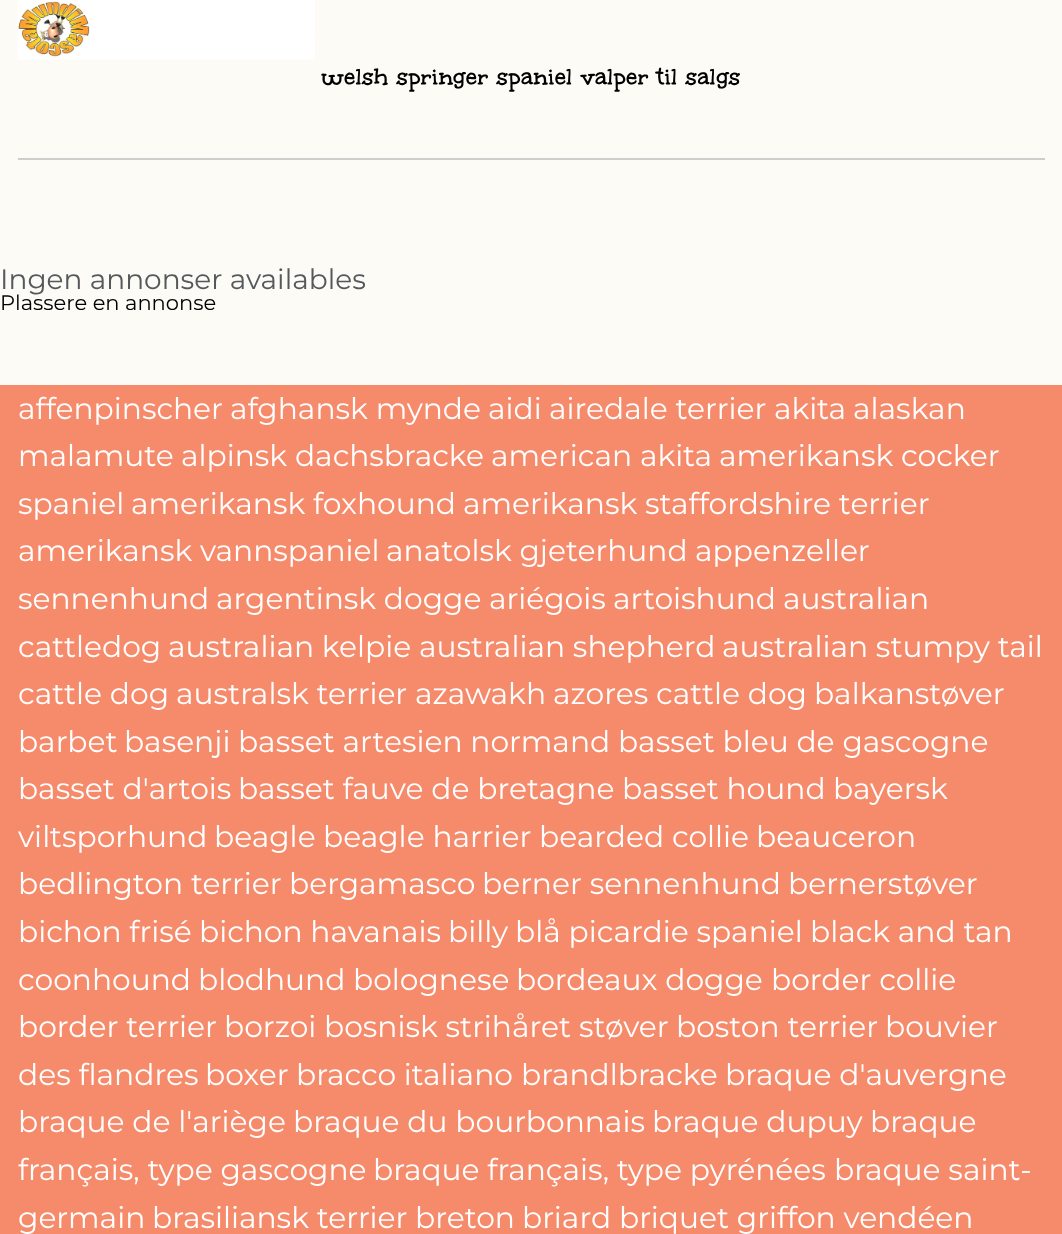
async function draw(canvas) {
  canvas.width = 1062;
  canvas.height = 1234;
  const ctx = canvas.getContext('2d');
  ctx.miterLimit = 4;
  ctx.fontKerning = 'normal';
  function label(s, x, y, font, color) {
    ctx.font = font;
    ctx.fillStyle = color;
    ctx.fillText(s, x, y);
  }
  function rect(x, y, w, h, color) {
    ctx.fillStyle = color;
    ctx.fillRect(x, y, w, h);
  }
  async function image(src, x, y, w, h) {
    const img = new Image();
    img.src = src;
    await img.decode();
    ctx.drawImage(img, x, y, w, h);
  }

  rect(0, 0, 1062, 1234, '#fdfbf6');
  await image('assets/img1.png', 17, 0, 298, 60);
  label('welsh springer spaniel valper til salgs', 321, 86, 'bold 26.25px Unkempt', '#000');
  rect(18, 158, 1027, 2, '#cecccc');
  label('Ingen annonser availables', 0, 289, '28px Montserrat', '#54595b');
  label('Plassere en annonse', 0, 310, '21px Montserrat', '#000');
  rect(0, 385, 1062, 849, '#f68b6c');
  label('affenpinscher', 18, 419, '29.75px Montserrat', '#fff');
  label('afghansk mynde', 230, 419, '29.75px Montserrat', '#fff');
  label('aidi', 488, 419, '29.75px Montserrat', '#fff');
  label('airedale terrier', 549, 419, '29.75px Montserrat', '#fff');
  label('akita', 774, 419, '29.75px Montserrat', '#fff');
  label('alaskan', 853, 419, '29.75px Montserrat', '#fff');
  label('malamute', 18, 466, '29.75px Montserrat', '#fff');
  label('alpinsk dachsbracke', 181, 466, '29.75px Montserrat', '#fff');
  label('american akita', 491, 466, '29.75px Montserrat', '#fff');
  label('amerikansk cocker', 719, 466, '29.75px Montserrat', '#fff');
  label('spaniel', 18, 514, '29.75px Montserrat', '#fff');
  label('amerikansk foxhound', 131, 514, '29.75px Montserrat', '#fff');
  label('amerikansk staffordshire terrier', 463, 514, '29.75px Montserrat', '#fff');
  label('amerikansk vannspaniel', 18, 561, '29.75px Montserrat', '#fff');
  label('anatolsk gjeterhund', 386, 561, '29.75px Montserrat', '#fff');
  label('appenzeller', 695, 561, '29.75px Montserrat', '#fff');
  label('sennenhund', 18, 609, '29.75px Montserrat', '#fff');
  label('argentinsk dogge', 216, 609, '29.75px Montserrat', '#fff');
  label('ariégois', 489, 609, '29.75px Montserrat', '#fff');
  label('artoishund', 613, 609, '29.75px Montserrat', '#fff');
  label('australian', 783, 609, '29.75px Montserrat', '#fff');
  label('cattledog', 18, 657, '29.75px Montserrat', '#fff');
  label('australian kelpie', 168, 657, '29.75px Montserrat', '#fff');
  label('australian shepherd', 419, 657, '29.75px Montserrat', '#fff');
  label('australian stumpy tail', 722, 657, '29.75px Montserrat', '#fff');
  label('cattle dog', 18, 704, '29.75px Montserrat', '#fff');
  label('australsk terrier', 176, 704, '29.75px Montserrat', '#fff');
  label('azawakh', 415, 704, '29.75px Montserrat', '#fff');
  label('azores cattle dog', 553, 704, '29.75px Montserrat', '#fff');
  label('balkanstøver', 814, 704, '29.75px Montserrat', '#fff');
  label('barbet', 18, 752, '29.75px Montserrat', '#fff');
  label('basenji', 124, 752, '29.75px Montserrat', '#fff');
  label('basset artesien normand', 238, 752, '29.75px Montserrat', '#fff');
  label('basset bleu de gascogne', 618, 752, '29.75px Montserrat', '#fff');
  label('basset d\'artois', 18, 799, '29.75px Montserrat', '#fff');
  label('basset fauve de bretagne', 238, 799, '29.75px Montserrat', '#fff');
  label('basset hound', 622, 799, '29.75px Montserrat', '#fff');
  label('bayersk', 833, 799, '29.75px Montserrat', '#fff');
  label('viltsporhund', 18, 847, '29.75px Montserrat', '#fff');
  label('beagle', 214, 847, '29.75px Montserrat', '#fff');
  label('beagle harrier', 323, 847, '29.75px Montserrat', '#fff');
  label('bearded collie', 539, 847, '29.75px Montserrat', '#fff');
  label('beauceron', 756, 847, '29.75px Montserrat', '#fff');
  label('bedlington terrier', 18, 894, '29.75px Montserrat', '#fff');
  label('bergamasco', 289, 894, '29.75px Montserrat', '#fff');
  label('berner sennenhund', 482, 894, '29.75px Montserrat', '#fff');
  label('bernerstøver', 788, 894, '29.75px Montserrat', '#fff');
  label('bichon frisé', 18, 942, '29.75px Montserrat', '#fff');
  label('bichon havanais', 199, 942, '29.75px Montserrat', '#fff');
  label('billy', 448, 942, '29.75px Montserrat', '#fff');
  label('blå picardie spaniel', 515, 942, '29.75px Montserrat', '#fff');
  label('black and tan', 810, 942, '29.75px Montserrat', '#fff');
  label('coonhound', 18, 990, '29.75px Montserrat', '#fff');
  label('blodhund', 198, 990, '29.75px Montserrat', '#fff');
  label('bolognese', 353, 990, '29.75px Montserrat', '#fff');
  label('bordeaux dogge', 516, 990, '29.75px Montserrat', '#fff');
  label('border collie', 771, 990, '29.75px Montserrat', '#fff');
  label('border terrier', 18, 1037, '29.75px Montserrat', '#fff');
  label('borzoi', 224, 1037, '29.75px Montserrat', '#fff');
  label('bosnisk strihåret støver', 324, 1037, '29.75px Montserrat', '#fff');
  label('boston terrier', 676, 1037, '29.75px Montserrat', '#fff');
  label('bouvier', 885, 1037, '29.75px Montserrat', '#fff');
  label('des flandres', 18, 1085, '29.75px Montserrat', '#fff');
  label('boxer', 205, 1085, '29.75px Montserrat', '#fff');
  label('bracco italiano', 296, 1085, '29.75px Montserrat', '#fff');
  label('brandlbracke', 521, 1085, '29.75px Montserrat', '#fff');
  label('braque d\'auvergne', 725, 1085, '29.75px Montserrat', '#fff');
  label('braque de l\'ariège', 18, 1132, '29.75px Montserrat', '#fff');
  label('braque du bourbonnais', 293, 1132, '29.75px Montserrat', '#fff');
  label('braque dupuy', 652, 1132, '29.75px Montserrat', '#fff');
  label('braque', 870, 1132, '29.75px Montserrat', '#fff');
  label('français, type gascogne', 18, 1180, '29.75px Montserrat', '#fff');
  label('braque français, type pyrénées', 373, 1180, '29.75px Montserrat', '#fff');
  label('braque saint-', 834, 1180, '29.75px Montserrat', '#fff');
  label('germain', 18, 1228, '29.75px Montserrat', '#fff');
  label('brasiliansk terrier', 152, 1228, '29.75px Montserrat', '#fff');
  label('breton', 415, 1228, '29.75px Montserrat', '#fff');
  label('briard', 522, 1228, '29.75px Montserrat', '#fff');
  label('briquet griffon vendéen', 619, 1228, '29.75px Montserrat', '#fff');
}

draw(document.querySelector('canvas'));
